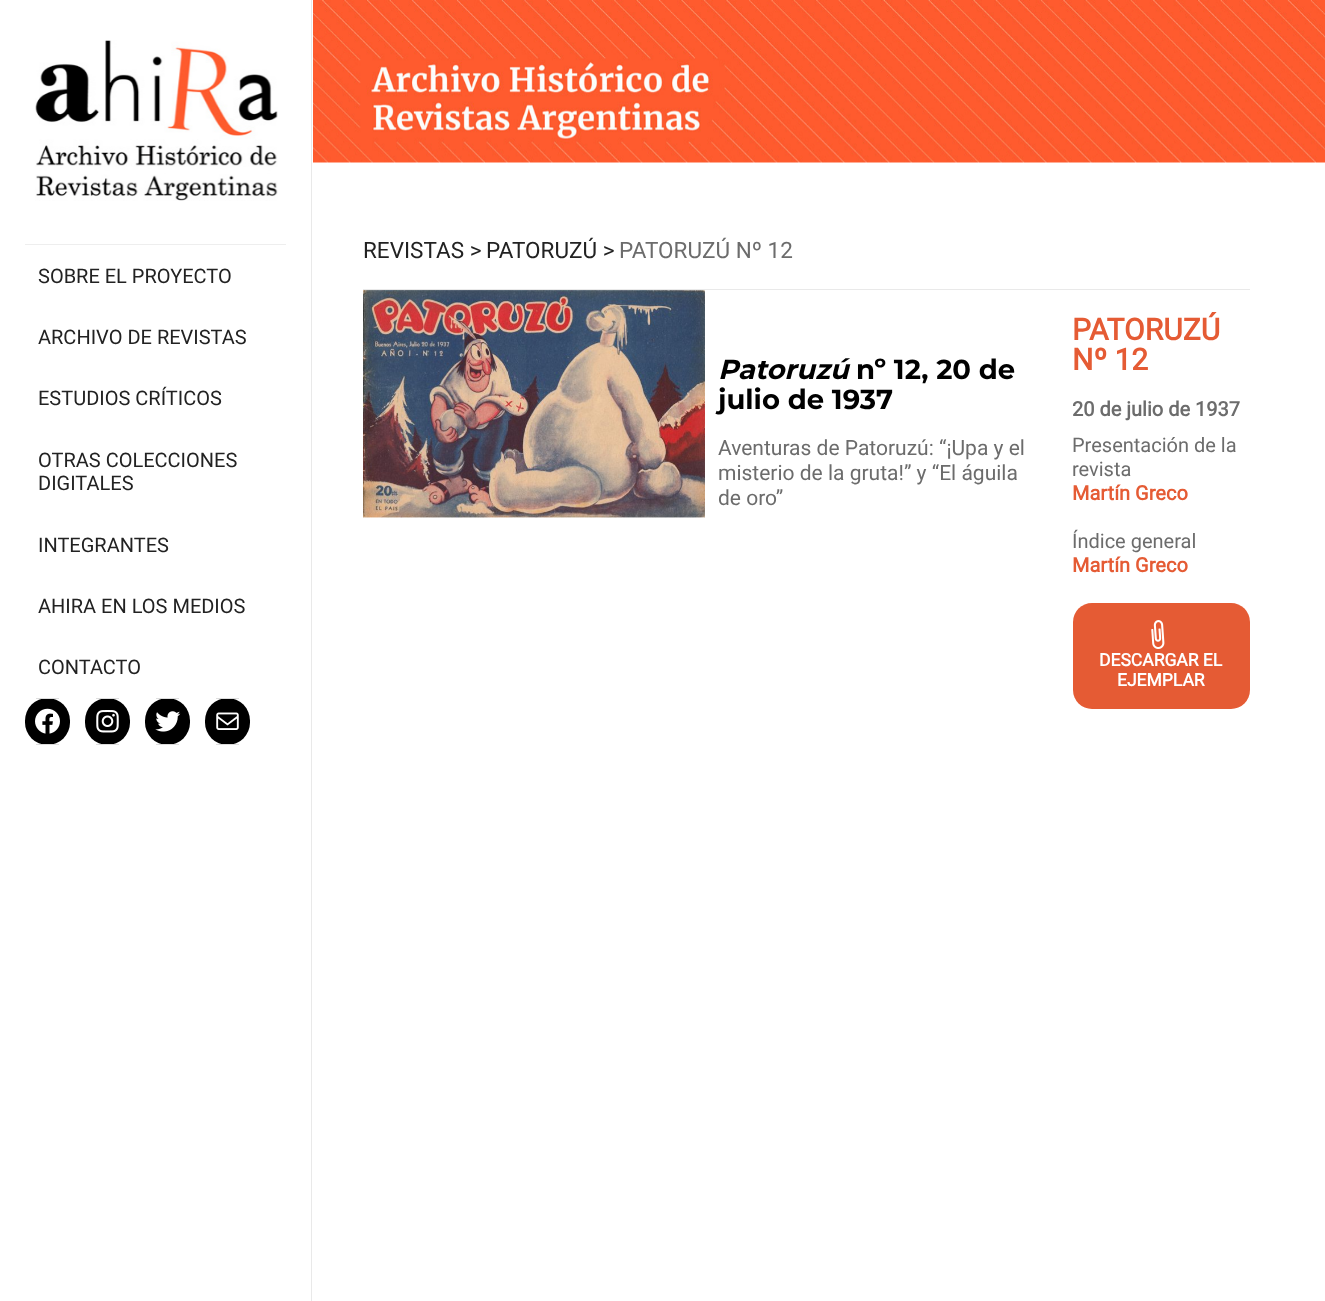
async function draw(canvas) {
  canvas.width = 1325;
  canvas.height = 1301;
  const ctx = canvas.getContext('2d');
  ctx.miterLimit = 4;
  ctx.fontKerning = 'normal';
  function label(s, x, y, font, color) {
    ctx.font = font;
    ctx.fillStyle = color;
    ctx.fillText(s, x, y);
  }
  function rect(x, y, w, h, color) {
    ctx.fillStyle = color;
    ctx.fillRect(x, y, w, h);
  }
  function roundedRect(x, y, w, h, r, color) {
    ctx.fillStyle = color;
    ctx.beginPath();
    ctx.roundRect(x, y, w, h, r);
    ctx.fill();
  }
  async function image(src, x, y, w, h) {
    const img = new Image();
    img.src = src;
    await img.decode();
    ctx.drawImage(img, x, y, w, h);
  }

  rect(0, 0, 1325, 1301, '#fff');
  rect(311, 0, 1, 1301, '#e9e9e9');
  await image('assets/img1.png', 35, 40, 243, 161);
  rect(25, 244, 261, 1, '#eee');
  label('SOBRE EL PROYECTO', 38, 283, '20px Roboto', '#222');
  label('ARCHIVO DE REVISTAS', 38, 344, '20px Roboto', '#222');
  label('ESTUDIOS CRÍTICOS', 38, 405, '20px Roboto', '#222');
  label('OTRAS COLECCIONES', 38, 467, '20px Roboto', '#222');
  label('DIGITALES', 38, 490, '20px Roboto', '#222');
  label('INTEGRANTES', 38, 552, '20px Roboto', '#222');
  label('AHIRA EN LOS MEDIOS', 38, 613, '20px Roboto', '#222');
  label('CONTACTO', 38, 674, '20px Roboto', '#222');
  roundedRect(25, 698, 45, 47, 22.5, '#000');
  rect(36, 698, 23, 1, '#ddd');
  rect(36, 744, 23, 1, '#ddd');
  await image('assets/img2.png', 35, 708, 25, 26);
  roundedRect(85, 698, 45, 47, 22.5, '#000');
  rect(96, 698, 23, 1, '#ddd');
  rect(96, 744, 23, 1, '#ddd');
  await image('assets/img3.png', 96, 710, 23, 23);
  roundedRect(145, 698, 45, 47, 22.5, '#000');
  rect(156, 698, 23, 1, '#ddd');
  rect(156, 744, 23, 1, '#ddd');
  await image('assets/img4.png', 155, 711, 26, 21);
  roundedRect(205, 698, 45, 47, 22.5, '#000');
  rect(216, 698, 23, 1, '#ddd');
  rect(216, 744, 23, 1, '#ddd');
  await image('assets/img5.png', 216, 712, 23, 18);
  await image('assets/img6.png', 313, 0, 1012, 163);
  rect(363, 289, 887, 1, '#e9e9e9');
  label('REVISTAS >', 363, 258, '22.5px Roboto', '#222');
  label('PATORUZÚ >', 486, 258, '22.5px Roboto', '#222');
  label('PATORUZÚ Nº 12', 619, 258, '22.5px Roboto', '#6c6c6c');
  await image('assets/img7.png', 363, 290, 342, 228);
  label('Patoruzú', 718, 379, 'italic 100 27.5px Montserrat', '#000');
  label('nº 12, 20 de', 856, 379, '100 27.5px Montserrat', '#000');
  label('julio de 1937', 718, 409, '100 27.5px Montserrat', '#000');
  label('Aventuras de Patoruzú: “¡Upa y el', 718, 455, '21px Roboto', '#6c6c6c');
  label('misterio de la gruta!” y “El águila', 718, 480, '21px Roboto', '#6c6c6c');
  label('de oro”', 718, 505, '21px Roboto', '#6c6c6c');
  label('PATORUZÚ', 1072, 340, 'bold 30px Roboto', '#e55b34');
  label('Nº 12', 1072, 370, 'bold 30px Roboto', '#e55b34');
  label('20 de julio de 1937', 1072, 416, 'bold 20px Roboto', '#6c6c6c');
  label('Presentación de la', 1072, 452, '20px Roboto', '#6c6c6c');
  label('revista', 1072, 476, '20px Roboto', '#6c6c6c');
  label('Martín Greco', 1072, 500, 'bold 20px Roboto', '#e55b34');
  label('Índice general', 1072, 548, '20px Roboto', '#6c6c6c');
  label('Martín Greco', 1072, 572, 'bold 20px Roboto', '#e55b34');
  roundedRect(1073, 603, 177, 106, 19, '#e55b34');
  await image('assets/img8.png', 1151, 620, 14, 29);
  label('DESCARGAR EL', 1099, 666, 'bold 17.5px Roboto', '#fff');
  label('EJEMPLAR', 1117, 686, 'bold 17.5px Roboto', '#fff');
}

draw(document.querySelector('canvas'));
